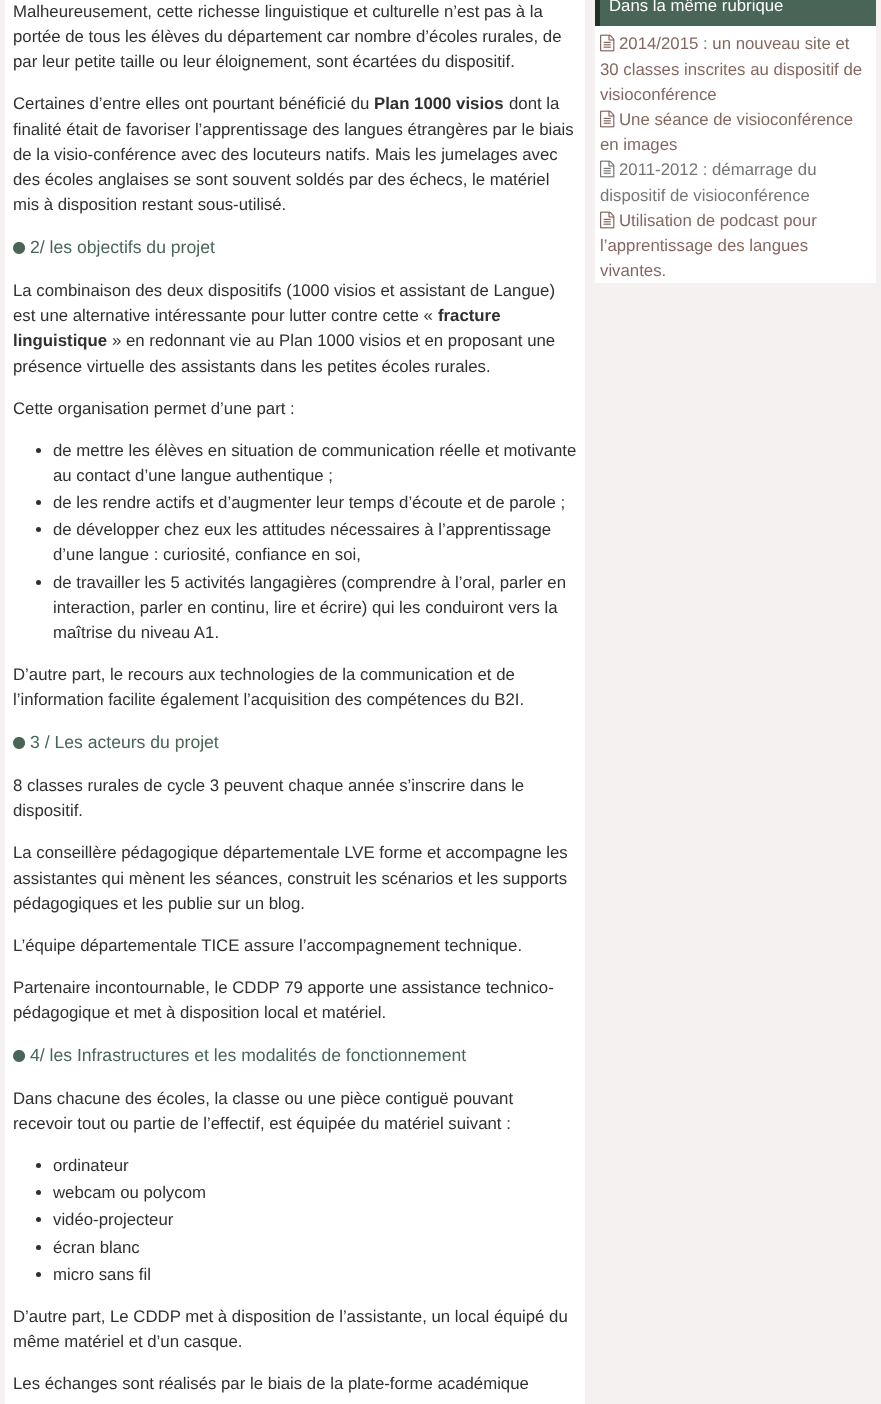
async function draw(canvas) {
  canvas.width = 881;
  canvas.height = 1404;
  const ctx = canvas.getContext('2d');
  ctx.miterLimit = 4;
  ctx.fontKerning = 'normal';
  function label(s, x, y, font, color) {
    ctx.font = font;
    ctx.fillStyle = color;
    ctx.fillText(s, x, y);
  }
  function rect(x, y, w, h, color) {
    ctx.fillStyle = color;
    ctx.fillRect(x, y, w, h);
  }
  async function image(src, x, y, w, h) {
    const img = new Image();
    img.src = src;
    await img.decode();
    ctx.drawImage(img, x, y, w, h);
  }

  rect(0, 0, 881, 1404, '#f4f1f0');
  rect(5, 0, 580, 1404, '#fff');
  label('Malheureusement, cette richesse linguistique et culturelle n’est pas à la', 13, 17, '16.8px Liberation Sans', '#303030');
  label('portée de tous les élèves du département car nombre d’écoles rurales, de', 13, 42, '16.8px Liberation Sans', '#303030');
  label('par leur petite taille ou leur éloignement, sont écartées du dispositif.', 13, 67, '16.8px Liberation Sans', '#303030');
  label('Certaines d’entre elles ont pourtant bénéficié du', 13, 109, '16.8px Liberation Sans', '#303030');
  label('Plan 1000 visios', 374, 109, 'bold 16.8px Liberation Sans', '#303030');
  label('dont la', 509, 109, '16.8px Liberation Sans', '#303030');
  label('finalité était de favoriser l’apprentissage des langues étrangères par le biais', 13, 135, '16.8px Liberation Sans', '#303030');
  label('de la visio-conférence avec des locuteurs natifs. Mais les jumelages avec', 13, 160, '16.8px Liberation Sans', '#303030');
  label('des écoles anglaises se sont souvent soldés par des échecs, le matériel', 13, 185, '16.8px Liberation Sans', '#303030');
  label('mis à disposition restant sous-utilisé.', 13, 210, '16.8px Liberation Sans', '#303030');
  await image('assets/img1.png', 13, 241, 13, 13);
  label('2/ les objectifs du projet', 30, 253, '17.6px Liberation Sans', '#496558');
  label('La combinaison des deux dispositifs (1000 visios et assistant de Langue)', 13, 296, '16.8px Liberation Sans', '#303030');
  label('est une alternative intéressante pour lutter contre cette «', 13, 321, '16.8px Liberation Sans', '#303030');
  label('fracture', 438, 321, 'bold 16.8px Liberation Sans', '#303030');
  label('linguistique', 13, 346, 'bold 16.8px Liberation Sans', '#303030');
  label('» en redonnant vie au Plan 1000 visios et en proposant une', 112, 346, '16.8px Liberation Sans', '#303030');
  label('présence virtuelle des assistants dans les petites écoles rurales.', 13, 372, '16.8px Liberation Sans', '#303030');
  label('Cette organisation permet d’une part :', 13, 414, '16.8px Liberation Sans', '#303030');
  ctx.beginPath();
  ctx.arc(38.5, 450.5, 2.5, 0, 2 * Math.PI);
  ctx.fill();
  label('de mettre les élèves en situation de communication réelle et motivante', 53, 456, '16.8px Liberation Sans', '#303030');
  label('au contact d’une langue authentique ;', 53, 481, '16.8px Liberation Sans', '#303030');
  ctx.beginPath();
  ctx.arc(38.5, 502.5, 2.5, 0, 2 * Math.PI);
  ctx.fill();
  label('de les rendre actifs et d’augmenter leur temps d’écoute et de parole ;', 53, 508, '16.8px Liberation Sans', '#303030');
  ctx.beginPath();
  ctx.arc(38.5, 529.5, 2.5, 0, 2 * Math.PI);
  ctx.fill();
  label('de développer chez eux les attitudes nécessaires à l’apprentissage', 53, 535, '16.8px Liberation Sans', '#303030');
  label('d’une langue : curiosité, confiance en soi,', 53, 560, '16.8px Liberation Sans', '#303030');
  ctx.beginPath();
  ctx.arc(38.5, 582.5, 2.5, 0, 2 * Math.PI);
  ctx.fill();
  label('de travailler les 5 activités langagières (comprendre à l’oral, parler en', 53, 588, '16.8px Liberation Sans', '#303030');
  label('interaction, parler en continu, lire et écrire) qui les conduiront vers la', 53, 613, '16.8px Liberation Sans', '#303030');
  label('maîtrise du niveau A1.', 53, 638, '16.8px Liberation Sans', '#303030');
  label('D’autre part, le recours aux technologies de la communication et de', 13, 680, '16.8px Liberation Sans', '#303030');
  label('l’information facilite également l’acquisition des compétences du B2I.', 13, 705, '16.8px Liberation Sans', '#303030');
  await image('assets/img1.png', 13, 736, 13, 13);
  label('3 / Les acteurs du projet', 30, 748, '17.6px Liberation Sans', '#496558');
  label('8 classes rurales de cycle 3 peuvent chaque année s’inscrire dans le', 13, 791, '16.8px Liberation Sans', '#303030');
  label('dispositif.', 13, 816, '16.8px Liberation Sans', '#303030');
  label('La conseillère pédagogique départementale LVE forme et accompagne les', 13, 858, '16.8px Liberation Sans', '#303030');
  label('assistantes qui mènent les séances, construit les scénarios et les supports', 13, 884, '16.8px Liberation Sans', '#303030');
  label('pédagogiques et les publie sur un blog.', 13, 909, '16.8px Liberation Sans', '#303030');
  label('L’équipe départementale TICE assure l’accompagnement technique.', 13, 951, '16.8px Liberation Sans', '#303030');
  label('Partenaire incontournable, le CDDP 79 apporte une assistance technico-', 13, 993, '16.8px Liberation Sans', '#303030');
  label('pédagogique et met à disposition local et matériel.', 13, 1018, '16.8px Liberation Sans', '#303030');
  await image('assets/img1.png', 13, 1049, 13, 13);
  label('4/ les Infrastructures et les modalités de fonctionnement', 30, 1061, '17.6px Liberation Sans', '#496558');
  label('Dans chacune des écoles, la classe ou une pièce contiguë pouvant', 13, 1104, '16.8px Liberation Sans', '#303030');
  label('recevoir tout ou partie de l’effectif, est équipée du matériel suivant :', 13, 1129, '16.8px Liberation Sans', '#303030');
  ctx.beginPath();
  ctx.arc(38.5, 1165.5, 2.5, 0, 2 * Math.PI);
  ctx.fill();
  label('ordinateur', 53, 1171, '16.8px Liberation Sans', '#303030');
  ctx.beginPath();
  ctx.arc(38.5, 1192.5, 2.5, 0, 2 * Math.PI);
  ctx.fill();
  label('webcam ou polycom', 53, 1198, '16.8px Liberation Sans', '#303030');
  ctx.beginPath();
  ctx.arc(38.5, 1219.5, 2.5, 0, 2 * Math.PI);
  ctx.fill();
  label('vidéo-projecteur', 53, 1225, '16.8px Liberation Sans', '#303030');
  ctx.beginPath();
  ctx.arc(38.5, 1247.5, 2.5, 0, 2 * Math.PI);
  ctx.fill();
  label('écran blanc', 53, 1253, '16.8px Liberation Sans', '#303030');
  ctx.beginPath();
  ctx.arc(38.5, 1274.5, 2.5, 0, 2 * Math.PI);
  ctx.fill();
  label('micro sans fil', 53, 1280, '16.8px Liberation Sans', '#303030');
  label('D’autre part, Le CDDP met à disposition de l’assistante, un local équipé du', 13, 1322, '16.8px Liberation Sans', '#303030');
  label('même matériel et d’un casque.', 13, 1347, '16.8px Liberation Sans', '#303030');
  label('Les échanges sont réalisés par le biais de la plate-forme académique', 13, 1389, '16.8px Liberation Sans', '#303030');
  rect(595, 26, 281, 257, '#fff');
  rect(600, 0, 276, 26, '#496558');
  rect(595, 0, 5, 26, '#212e28');
  label('Dans la même rubrique', 609, 11, '16.8px Liberation Sans', '#fff');
  await image('assets/img2.png', 600, 34, 15, 18);
  label('2014/2015 : un nouveau site et', 619, 49, '16.8px Liberation Sans', '#84685f');
  label('30 classes inscrites au dispositif de', 600, 75, '16.8px Liberation Sans', '#84685f');
  label('visioconférence', 600, 100, '16.8px Liberation Sans', '#84685f');
  await image('assets/img2.png', 600, 110, 15, 18);
  label('Une séance de visioconférence', 619, 125, '16.8px Liberation Sans', '#84685f');
  label('en images', 600, 150, '16.8px Liberation Sans', '#84685f');
  await image('assets/img3.png', 600, 160, 15, 18);
  label('2011-2012 : démarrage du', 619, 175, '16.8px Liberation Sans', '#767676');
  label('dispositif de visioconférence', 600, 201, '16.8px Liberation Sans', '#767676');
  await image('assets/img2.png', 600, 211, 15, 18);
  label('Utilisation de podcast pour', 619, 226, '16.8px Liberation Sans', '#84685f');
  label('l’apprentissage des langues', 600, 251, '16.8px Liberation Sans', '#84685f');
  label('vivantes.', 600, 276, '16.8px Liberation Sans', '#84685f');
}

draw(document.querySelector('canvas'));
